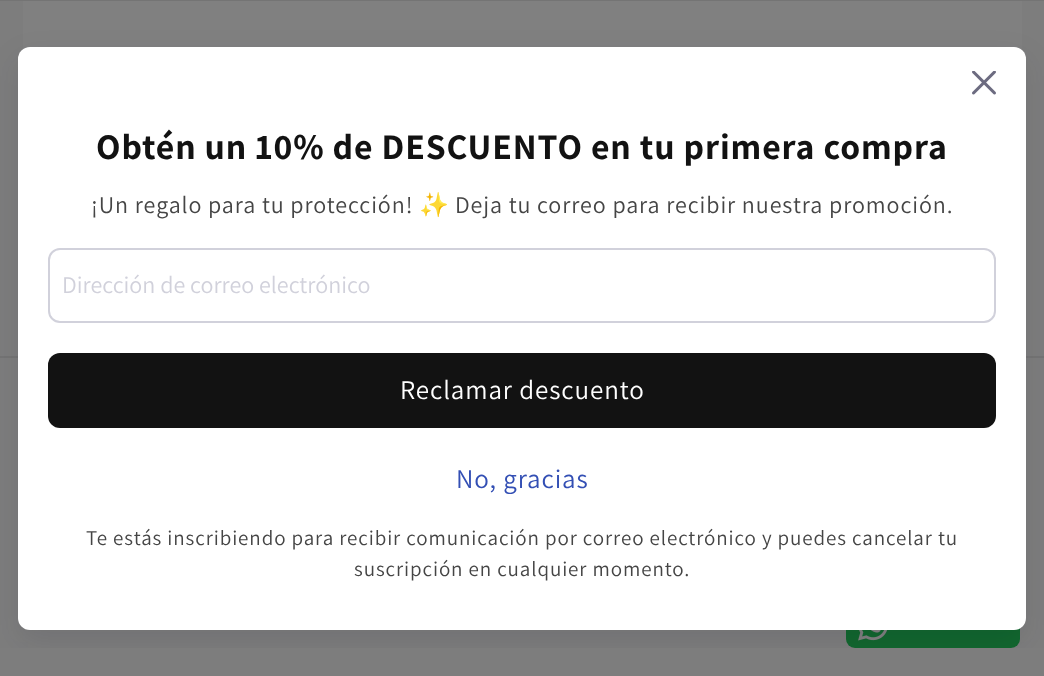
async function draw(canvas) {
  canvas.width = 1044;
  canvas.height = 676;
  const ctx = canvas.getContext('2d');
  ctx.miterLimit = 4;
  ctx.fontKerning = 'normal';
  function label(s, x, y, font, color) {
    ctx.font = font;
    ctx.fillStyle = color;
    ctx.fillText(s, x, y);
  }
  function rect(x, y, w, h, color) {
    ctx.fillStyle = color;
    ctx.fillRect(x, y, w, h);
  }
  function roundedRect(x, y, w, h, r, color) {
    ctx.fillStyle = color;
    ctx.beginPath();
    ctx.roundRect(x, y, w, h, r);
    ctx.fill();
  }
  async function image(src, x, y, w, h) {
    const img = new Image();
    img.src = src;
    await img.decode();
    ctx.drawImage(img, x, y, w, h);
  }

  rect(0, 0, 1044, 676, '#7d7d7d');
  rect(0, 0, 1044, 1, '#747474');
  rect(23, 1, 999, 50, '#808080');
  rect(0, 356, 1044, 2, '#747474');
  roundedRect(846, 603, 174, 45, 9, '#11672e');
  await image('assets/img2.png', 858, 630, 30, 11);
  ctx.save();
  ctx.beginPath();
  ctx.rect(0, 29, 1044, 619);
  ctx.clip();
  ctx.fillStyle = '#1211271a';
  ctx.filter = 'blur(15px)';
  ctx.beginPath();
  ctx.roundRect(18, 59, 1008, 583, 12);
  ctx.fill();
  ctx.filter = 'none';
  ctx.restore();
  roundedRect(18, 47, 1008, 583, 12, '#fff');
  await image('assets/img1.png', 972, 71, 24, 24);
  ctx.letterSpacing = '0.9px';
  label('Obtén un 10% de DESCUENTO en tu primera compra', 96, 159, 'bold 36px Assistant', '#121212');
  label('¡Un regalo para tu protección!', 91, 213, '24px Assistant', '#454545');
  label('✨', 419, 213, '24px Noto Color Emoji', '#454545');
  label('Deja tu correo para recibir nuestra promoción.', 455, 213, '24px Assistant', '#454545');
  ctx.beginPath();
  ctx.roundRect(49, 249, 946, 73, 11);
  ctx.strokeStyle = '#d1d1db';
  ctx.lineWidth = 2;
  ctx.stroke();
  ctx.letterSpacing = '0px';
  label('Dirección de correo electrónico', 62, 293, '24px Assistant', '#d1d1db');
  roundedRect(48, 353, 948, 75, 12, '#121212');
  ctx.letterSpacing = '0.9px';
  label('Reclamar descuento', 400, 399, '27px Assistant', '#fff');
  label('No, gracias', 456, 488, '27px Assistant', '#334fb4');
  label('Te estás inscribiendo para recibir comunicación por correo electrónico y puedes cancelar tu', 86, 545, '21px Assistant', '#454545');
  label('suscripción en cualquier momento.', 354, 576, '21px Assistant', '#454545');
}

draw(document.querySelector('canvas'));
